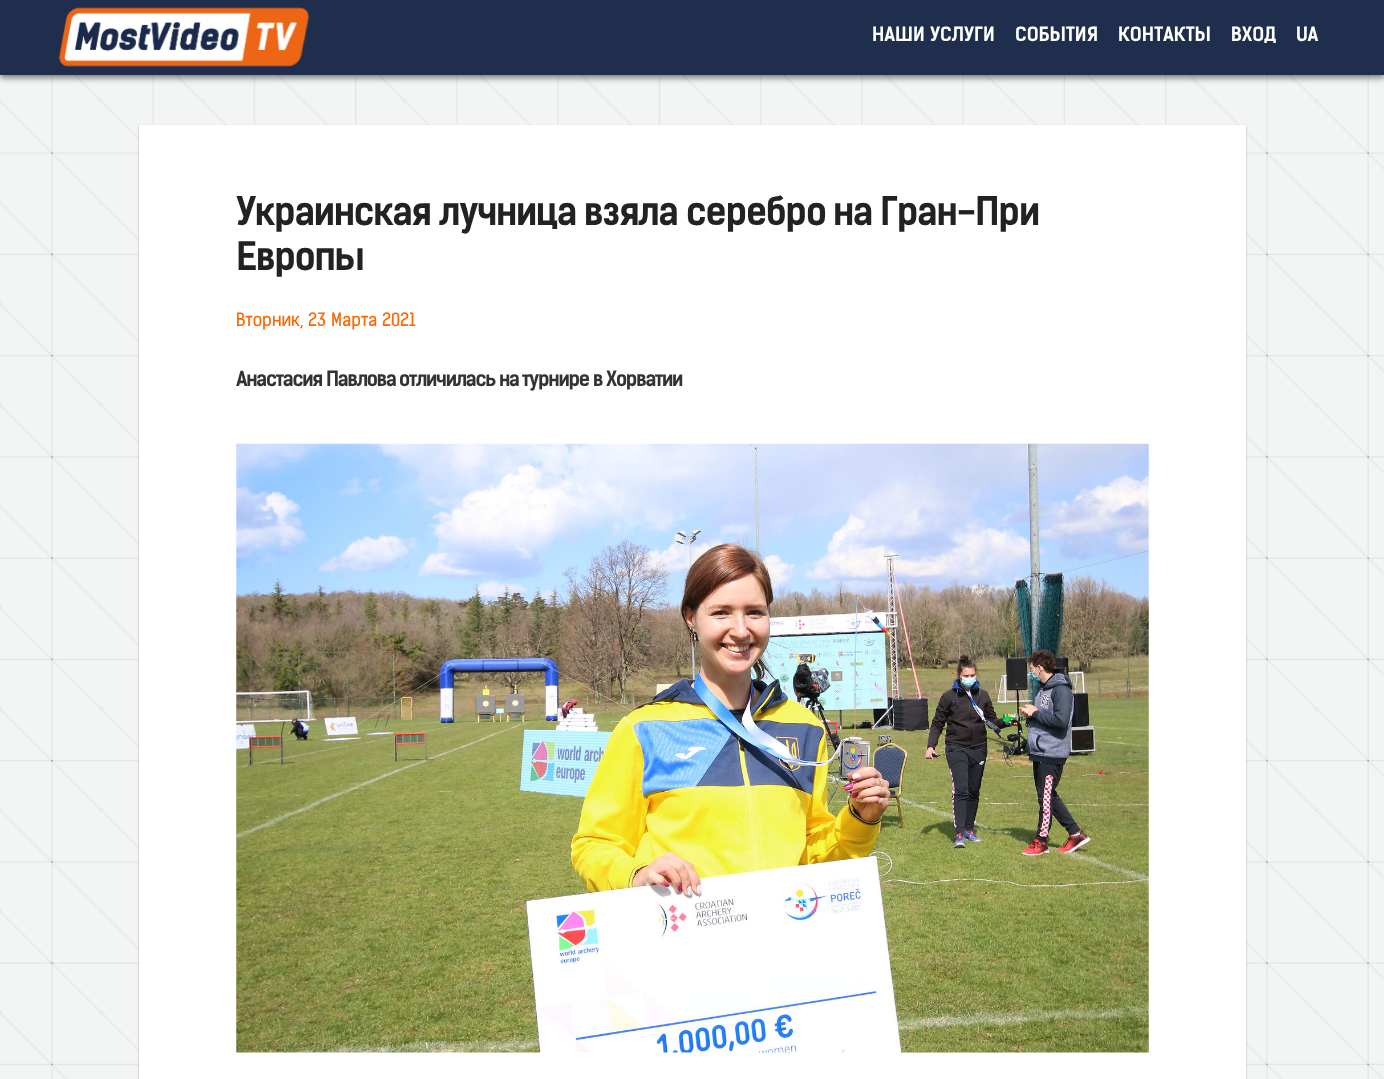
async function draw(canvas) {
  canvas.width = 1384;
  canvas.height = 1079;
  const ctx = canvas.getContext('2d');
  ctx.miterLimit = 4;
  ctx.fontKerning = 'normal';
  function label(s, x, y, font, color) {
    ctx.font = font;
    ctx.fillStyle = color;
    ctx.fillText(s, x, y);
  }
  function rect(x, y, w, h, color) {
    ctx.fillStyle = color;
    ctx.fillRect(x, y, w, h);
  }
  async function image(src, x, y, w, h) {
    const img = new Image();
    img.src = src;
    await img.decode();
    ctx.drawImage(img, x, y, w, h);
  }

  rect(0, 0, 1384, 1079, '#fff');
  await image('assets/img1.png', 0, 75, 1384, 1004);
  ctx.fillStyle = '#00000080';
  ctx.filter = 'blur(3px)';
  ctx.beginPath();
  ctx.rect(0, 3, 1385, 75);
  ctx.fill();
  ctx.filter = 'none';
  rect(0, 0, 1384, 75, '#1f2e4d');
  await image('assets/img2.png', 58, 7, 251, 60);
  label('НАШИ', 872, 41, 'bold 18.75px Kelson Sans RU', '#fff');
  label('УСЛУГИ', 930, 41, 'bold 18.75px Kelson Sans RU', '#fff');
  label('СОБЫТИЯ', 1015, 41, 'bold 18.75px Kelson Sans RU', '#fff');
  label('КОНТАКТЫ', 1118, 41, 'bold 18.75px Kelson Sans RU', '#fff');
  label('ВХОД', 1231, 41, 'bold 18.75px Kelson Sans RU', '#fff');
  label('UA', 1296, 41, 'bold 18.75px Kelson Sans RU', '#fff');
  ctx.fillStyle = '#00000040';
  ctx.filter = 'blur(1px)';
  ctx.beginPath();
  ctx.rect(139, 126, 1107, 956);
  ctx.fill();
  ctx.filter = 'none';
  rect(139, 125, 1107, 954, '#fff');
  ctx.letterSpacing = '-1.25px';
  label('Украинская', 236, 225, 'bold 37.5px Kelson Sans RU', '#222');
  label('лучница', 439, 225, 'bold 37.5px Kelson Sans RU', '#222');
  label('взяла', 584, 225, 'bold 37.5px Kelson Sans RU', '#222');
  label('серебро', 686, 225, 'bold 37.5px Kelson Sans RU', '#222');
  label('на', 833, 225, 'bold 37.5px Kelson Sans RU', '#222');
  label('Гран-При', 880, 225, 'bold 37.5px Kelson Sans RU', '#222');
  label('Европы', 236, 270, 'bold 37.5px Kelson Sans RU', '#222');
  ctx.letterSpacing = '0px';
  label('Вторник,', 236, 326, '17.5px Kelson Sans RU', '#f60');
  label('23', 308, 326, '17.5px Kelson Sans RU', '#f60');
  label('Марта', 331, 326, '17.5px Kelson Sans RU', '#f60');
  label('2021', 382, 326, '17.5px Kelson Sans RU', '#f60');
  ctx.letterSpacing = '-1.25px';
  label('Анастасия', 236, 386, 'bold 20px Kelson Sans RU', '#333');
  label('Павлова', 326, 386, 'bold 20px Kelson Sans RU', '#333');
  label('отличилась', 399, 386, 'bold 20px Kelson Sans RU', '#333');
  label('на', 499, 386, 'bold 20px Kelson Sans RU', '#333');
  label('турнире', 522, 386, 'bold 20px Kelson Sans RU', '#333');
  label('в', 593, 386, 'bold 20px Kelson Sans RU', '#333');
  label('Хорватии', 606, 386, 'bold 20px Kelson Sans RU', '#333');
  await image('assets/img3.png', 236, 443, 913, 610);
}

draw(document.querySelector('canvas'));
